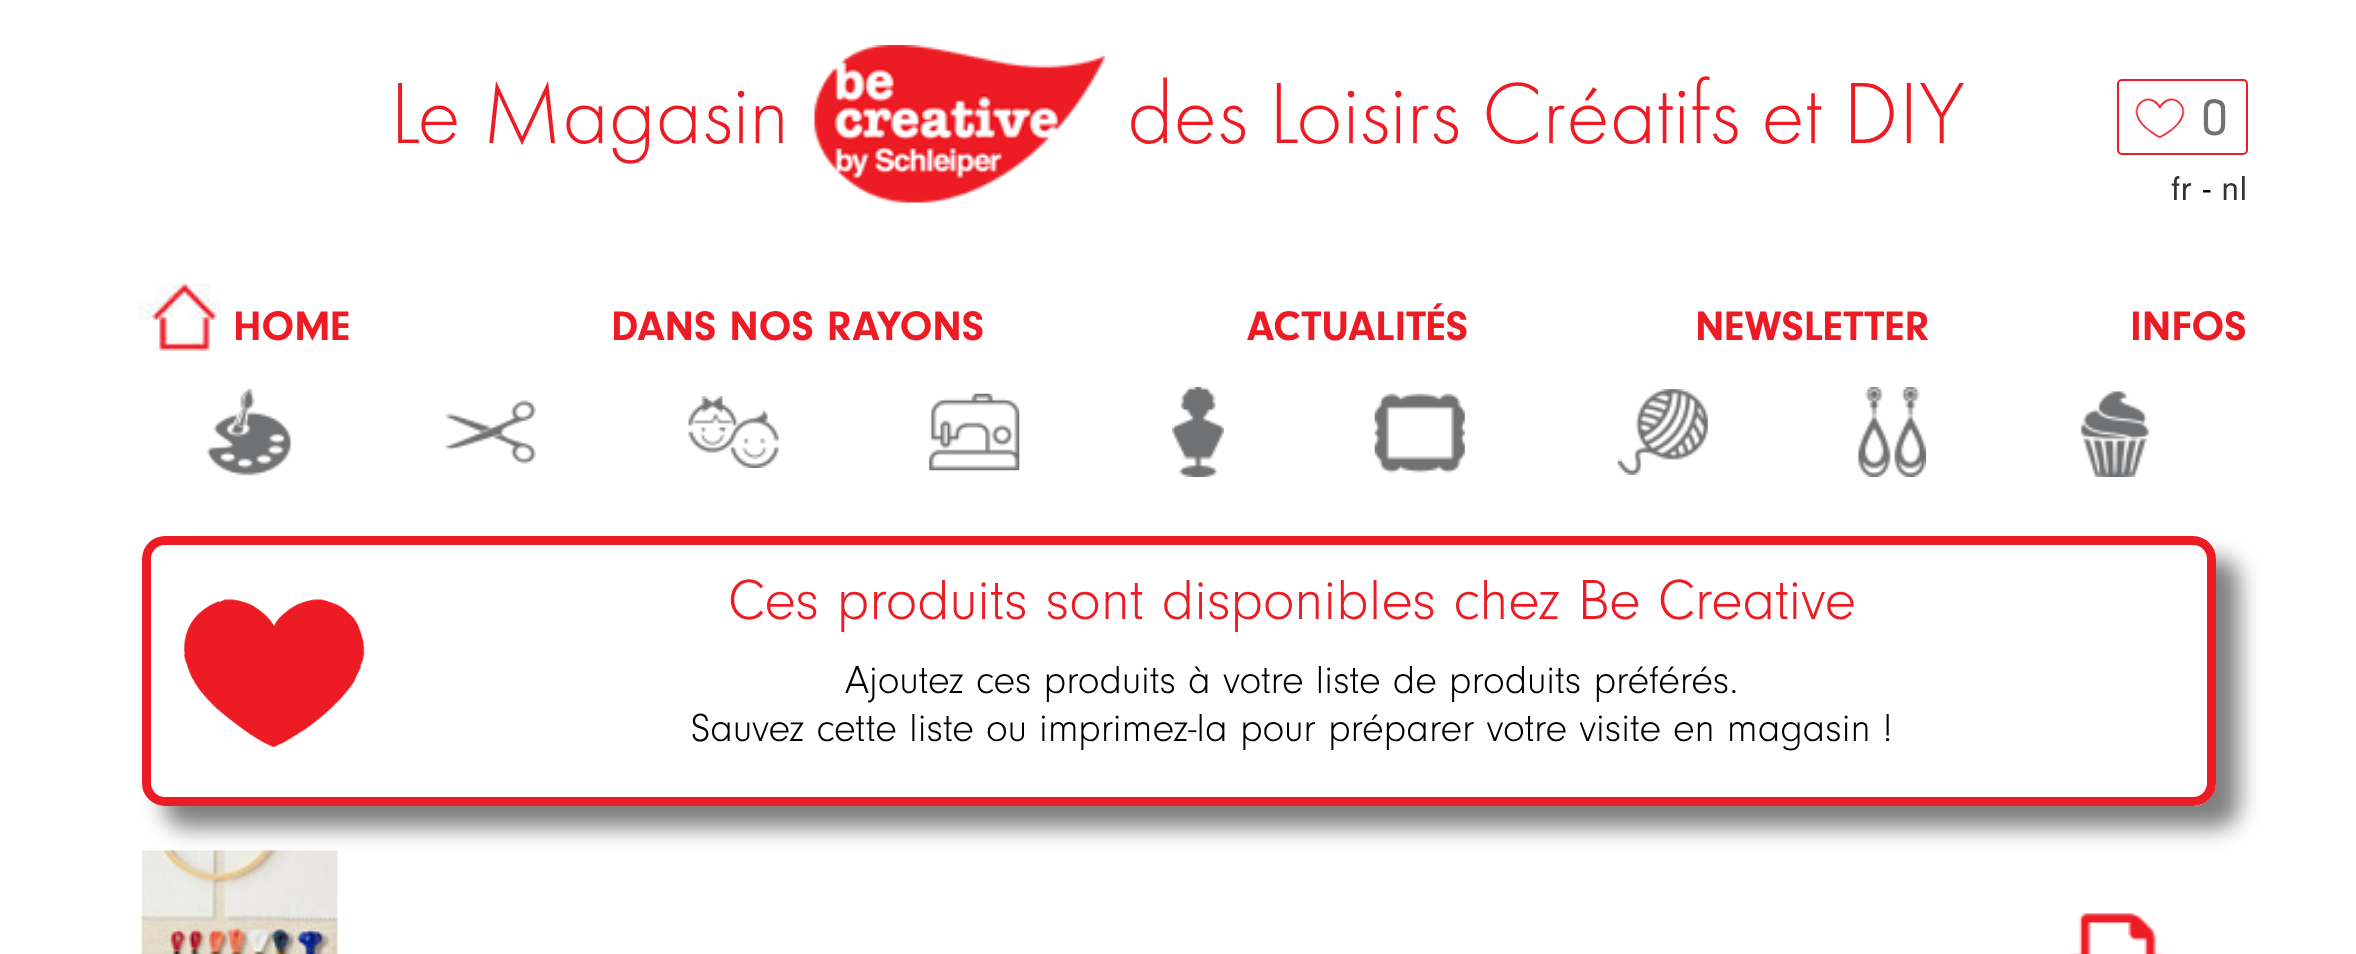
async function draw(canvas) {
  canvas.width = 2356;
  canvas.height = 954;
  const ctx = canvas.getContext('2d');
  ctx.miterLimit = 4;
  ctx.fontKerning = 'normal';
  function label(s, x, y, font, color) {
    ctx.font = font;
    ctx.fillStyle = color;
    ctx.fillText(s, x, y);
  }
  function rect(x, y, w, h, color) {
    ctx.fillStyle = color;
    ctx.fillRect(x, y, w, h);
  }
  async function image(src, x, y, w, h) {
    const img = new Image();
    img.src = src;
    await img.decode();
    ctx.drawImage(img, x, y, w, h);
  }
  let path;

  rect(0, 0, 2356, 954, '#fff');
  label('Le Magasin', 390, 143, '300 90px Futura PT', '#ed1c24');
  await image('assets/img1.png', 814, 45, 291, 158);
  label('des Loisirs Créatifs et DIY', 1127, 143, '300 90px Futura PT', '#ed1c24');
  ctx.beginPath();
  ctx.roundRect(2118, 80, 129, 74, 4);
  ctx.strokeStyle = '#ed1c24';
  ctx.lineWidth = 2;
  ctx.stroke();
  await image('assets/img2.png', 2135, 98, 50, 40);
  label('0', 2201, 135, '54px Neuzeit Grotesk', '#707273');
  label('fr', 2171, 200, '36px Neuzeit Grotesk', '#333');
  label('-', 2203, 200, '36px Neuzeit Grotesk', '#000');
  label('nl', 2221, 200, '36px Neuzeit Grotesk', '#333');
  await image('assets/img3.png', 137, 283, 84, 68);
  label('HOME', 233, 340, 'bold 42.75px Neuzeit Grotesk', '#ed1c24');
  label('DANS NOS RAYONS', 611, 340, 'bold 42.75px Neuzeit Grotesk', '#ed1c24');
  label('ACTUALITÉS', 1247, 340, 'bold 42.75px Neuzeit Grotesk', '#ed1c24');
  label('NEWSLETTER', 1695, 340, 'bold 42.75px Neuzeit Grotesk', '#ed1c24');
  label('INFOS', 2130, 340, 'bold 42.75px Neuzeit Grotesk', '#ed1c24');
  await image('assets/img4.png', 206, 389, 87, 87);
  await image('assets/img5.png', 445, 400, 91, 64);
  await image('assets/img6.png', 688, 396, 91, 72);
  await image('assets/img7.png', 929, 393, 91, 78);
  await image('assets/img8.png', 1172, 387, 52, 90);
  await image('assets/img9.png', 1374, 393, 91, 80);
  await image('assets/img10.png', 1617, 389, 91, 86);
  await image('assets/img11.png', 1858, 387, 68, 90);
  await image('assets/img12.png', 2080, 391, 70, 86);
  ctx.save();
  path = new Path2D('M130 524H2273V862H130ZM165 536H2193C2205.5 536 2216 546.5 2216 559V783C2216 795.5 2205.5 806 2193 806H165C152.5 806 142 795.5 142 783V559C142 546.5 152.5 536 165 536Z');
  ctx.clip(path, 'evenodd');
  ctx.fillStyle = '#00000080';
  ctx.filter = 'blur(11px)';
  ctx.beginPath();
  ctx.roundRect(164, 558, 2075, 270, 23);
  ctx.fill();
  ctx.filter = 'none';
  ctx.restore();
  ctx.beginPath();
  ctx.roundRect(146.5, 540.5, 2065, 261, 18.5);
  ctx.lineWidth = 9;
  ctx.stroke();
  await image('assets/img13.png', 183, 599, 182, 148);
  label('Ces produits sont disponibles chez Be Creative', 728, 619, '300 58.5px Neuzeit Grotesk', '#ed1c24');
  label('Ajoutez ces produits à votre liste de produits préférés.', 845, 693, '300 40.5px Neuzeit Grotesk', '#000');
  label('Sauvez cette liste ou imprimez-la pour préparer votre visite en magasin !', 691, 741, '300 40.5px Neuzeit Grotesk', '#000');
  await image('assets/img14.png', 141, 850, 197, 104);
  await image('assets/img15.png', 2071, 913, 93, 41);
}

draw(document.querySelector('canvas'));
